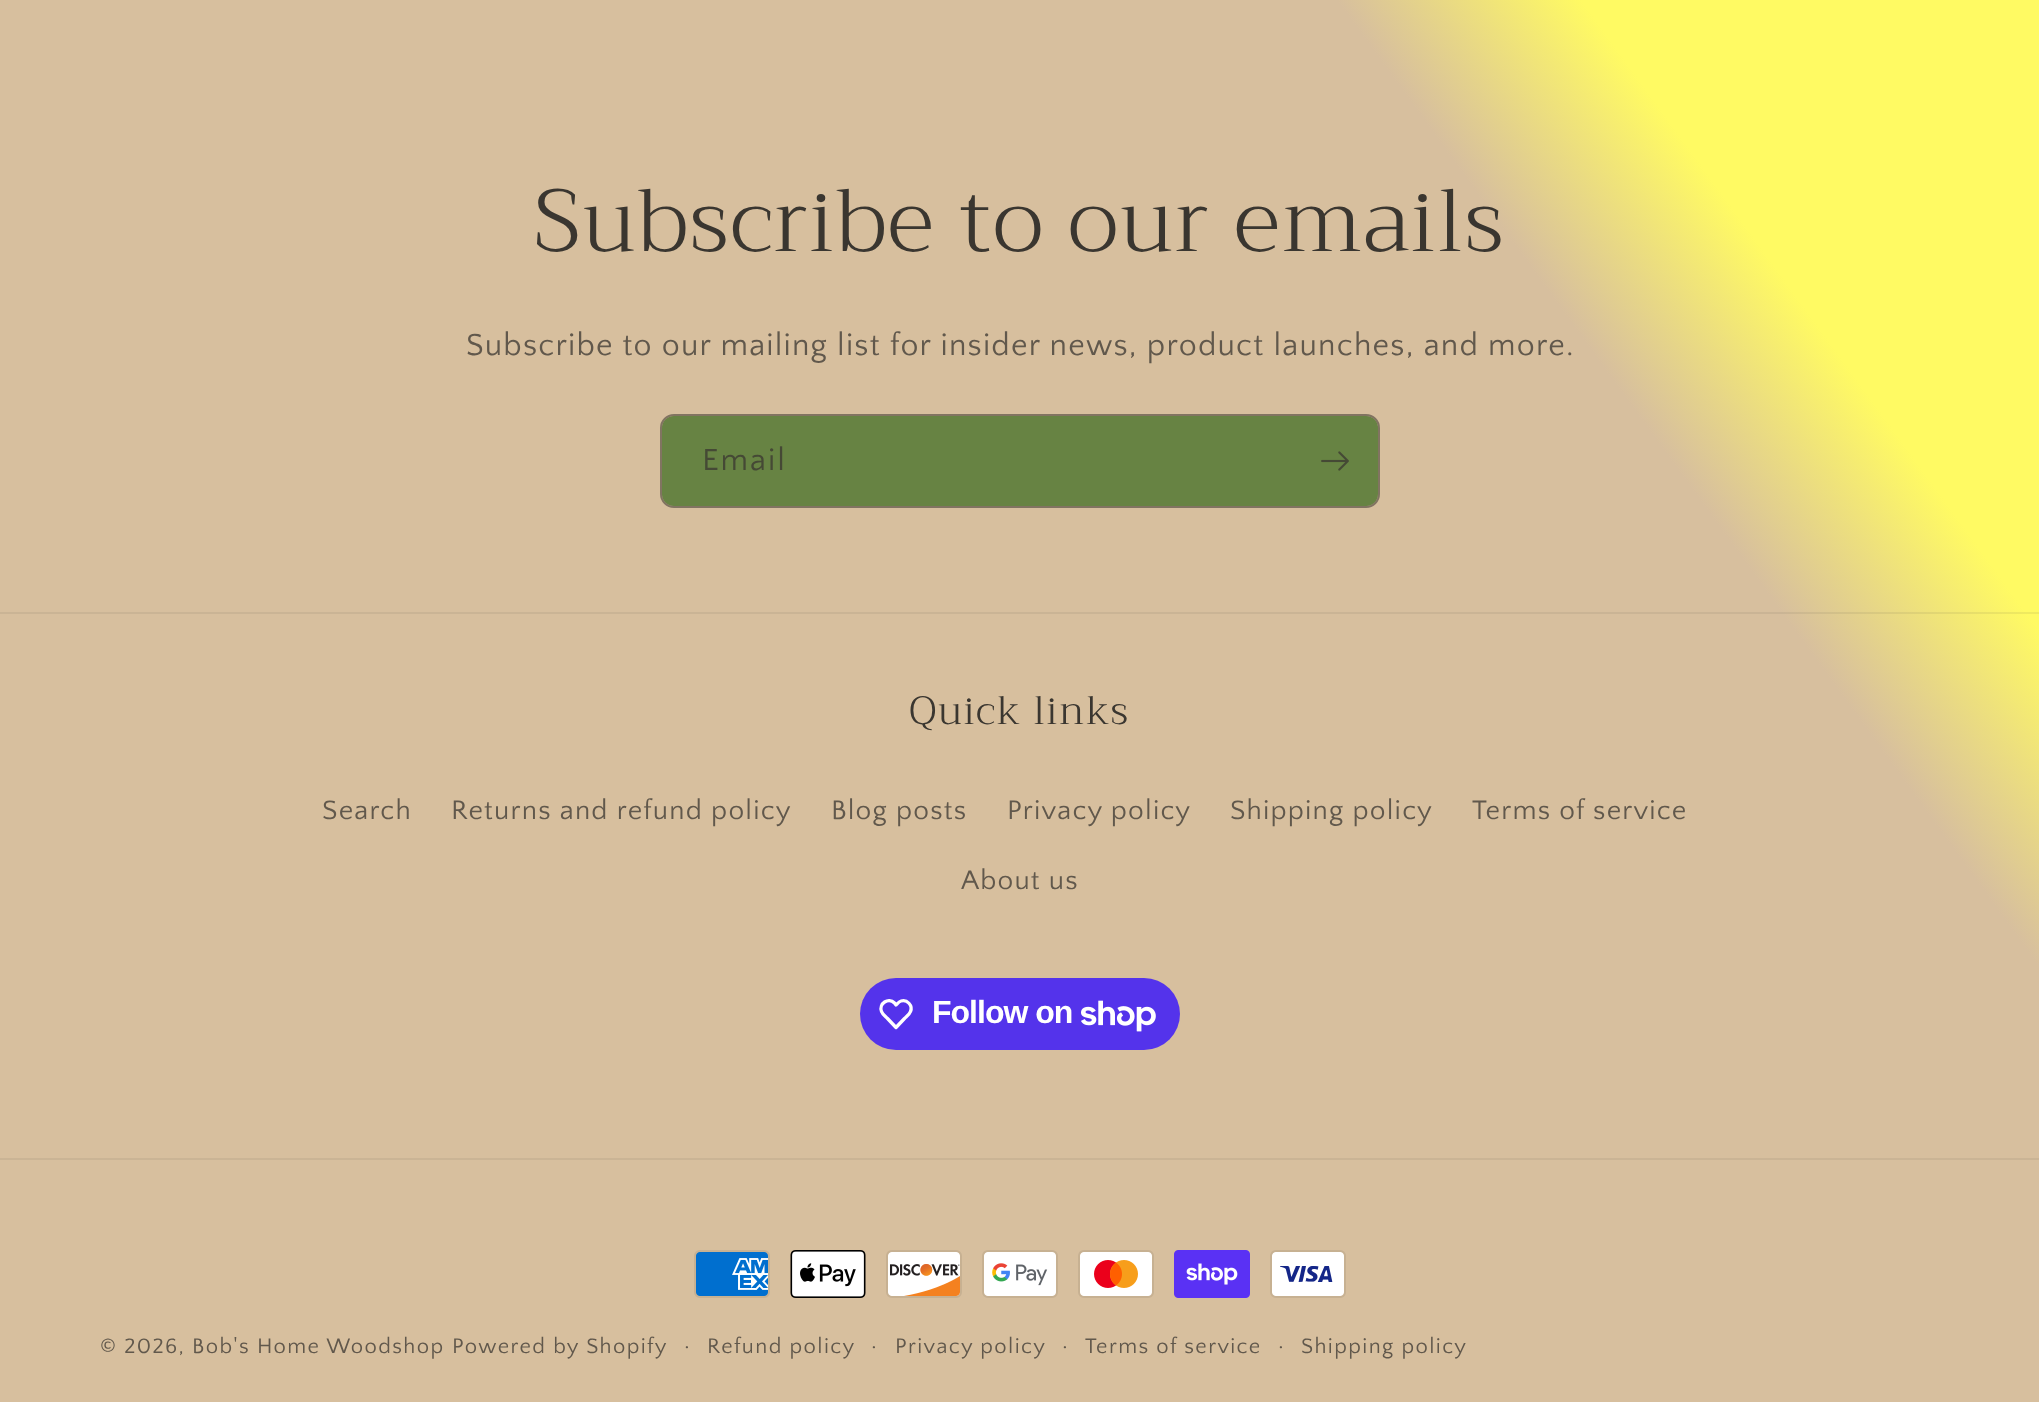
async function draw(canvas) {
  canvas.width = 2039;
  canvas.height = 1402;
  const ctx = canvas.getContext('2d');
  ctx.miterLimit = 4;
  ctx.fontKerning = 'normal';
  function label(s, x, y, font, color) {
    ctx.font = font;
    ctx.fillStyle = color;
    ctx.fillText(s, x, y);
  }
  function rect(x, y, w, h, color) {
    ctx.fillStyle = color;
    ctx.fillRect(x, y, w, h);
  }
  function roundedRect(x, y, w, h, r, color) {
    ctx.fillStyle = color;
    ctx.beginPath();
    ctx.roundRect(x, y, w, h, r);
    ctx.fill();
  }
  async function image(src, x, y, w, h) {
    const img = new Image();
    img.src = src;
    await img.decode();
    ctx.drawImage(img, x, y, w, h);
  }
  let gradient, path;

  rect(0, 0, 2039, 1402, '#fff');
  gradient = ctx.createLinearGradient(19, 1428, 2021, -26);
  gradient.addColorStop(0.77, '#d7bf9e');
  gradient.addColorStop(0.85, '#fffa63');
  ctx.fillStyle = gradient;
  ctx.fillRect(0, 0, 2039, 1402);
  gradient = ctx.createLinearGradient(19, 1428, 2021, -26);
  gradient.addColorStop(0.77, '#cab495');
  gradient.addColorStop(0.85, '#efea5f');
  ctx.fillStyle = gradient;
  ctx.fillRect(0, 612, 2039, 2);
  ctx.letterSpacing = '1.3px';
  label('Subscribe to our emails', 534, 251, '300 88px Trirong', '#3a3630');
  ctx.letterSpacing = '1.2px';
  label('Subscribe to our mailing list for insider news, product launches, and more.', 466, 355, '32px Quattrocento Sans', '#61584c');
  roundedRect(662, 416, 716, 90, 12, '#678343');
  ctx.beginPath();
  ctx.roundRect(661, 415, 718, 92, 13);
  ctx.strokeStyle = '#3a36308c';
  ctx.lineWidth = 2;
  ctx.stroke();
  ctx.letterSpacing = '2px';
  label('Email', 702, 470, '32px Quattrocento Sans', '#454935');
  await image('assets/img1.png', 1321, 451, 28, 20);
  ctx.letterSpacing = '1.3px';
  label('Quick links', 909, 724, '300 39.5px Trirong', '#3a3630');
  ctx.letterSpacing = '1.2px';
  label('Search', 322, 819, '28px Quattrocento Sans', '#61584c');
  label('Returns and refund policy', 451, 819, '28px Quattrocento Sans', '#61584c');
  label('Blog posts', 831, 819, '28px Quattrocento Sans', '#61584c');
  label('Privacy policy', 1007, 819, '28px Quattrocento Sans', '#61584c');
  label('Shipping policy', 1230, 819, '28px Quattrocento Sans', '#61584c');
  label('Terms of service', 1472, 819, '28px Quattrocento Sans', '#61584c');
  label('About us', 961, 889, '28px Quattrocento Sans', '#61584c');
  roundedRect(860, 978, 320, 72, 36, '#5433eb');
  path = new Path2D('M894.5 1003L896 1005C897.5 1003.5 899 1001.5 901 1001C907 999 913 1005.5 910.5 1011.5C909.5 1014.5 906.5 1016.5 904.5 1018.5L896 1027.5L887.5 1018.5C885.5 1016.5 882.5 1014.5 881.5 1011.5C878.5 1003.5 888.5 997 894.5 1003Z');
  ctx.strokeStyle = '#fff';
  ctx.lineWidth = 3.3;
  ctx.lineJoin = 'round';
  ctx.stroke(path);
  ctx.letterSpacing = '-1px';
  label('Follow on', 932, 1023, 'bold 32px Liberation Sans', '#fff');
  await image('assets/img2.png', 1081, 1000, 75, 32);
  rect(0, 1158, 2039, 2, '#cab495');
  await image('assets/img3.png', 694, 1250, 76, 48);
  await image('assets/img4.png', 790, 1250, 76, 48);
  await image('assets/img5.png', 886, 1250, 76, 48);
  await image('assets/img6.png', 982, 1250, 76, 48);
  await image('assets/img7.png', 1078, 1250, 76, 48);
  await image('assets/img8.png', 1174, 1250, 76, 48);
  await image('assets/img9.png', 1270, 1250, 76, 48);
  ctx.letterSpacing = '1.4px';
  label('© 2026, Bob\'s Home Woodshop', 100, 1353, '22px Quattrocento Sans', '#61584c');
  label('Powered by Shopify', 452, 1353, '22px Quattrocento Sans', '#61584c');
  label('·', 684, 1353, '24px Quattrocento Sans', '#61584c');
  label('Refund policy', 707, 1353, '22px Quattrocento Sans', '#61584c');
  label('·', 871, 1353, '24px Quattrocento Sans', '#61584c');
  label('Privacy policy', 895, 1353, '22px Quattrocento Sans', '#61584c');
  label('·', 1062, 1353, '24px Quattrocento Sans', '#61584c');
  label('Terms of service', 1085, 1353, '22px Quattrocento Sans', '#61584c');
  label('·', 1278, 1353, '24px Quattrocento Sans', '#61584c');
  label('Shipping policy', 1301, 1353, '22px Quattrocento Sans', '#61584c');
}

draw(document.querySelector('canvas'));
